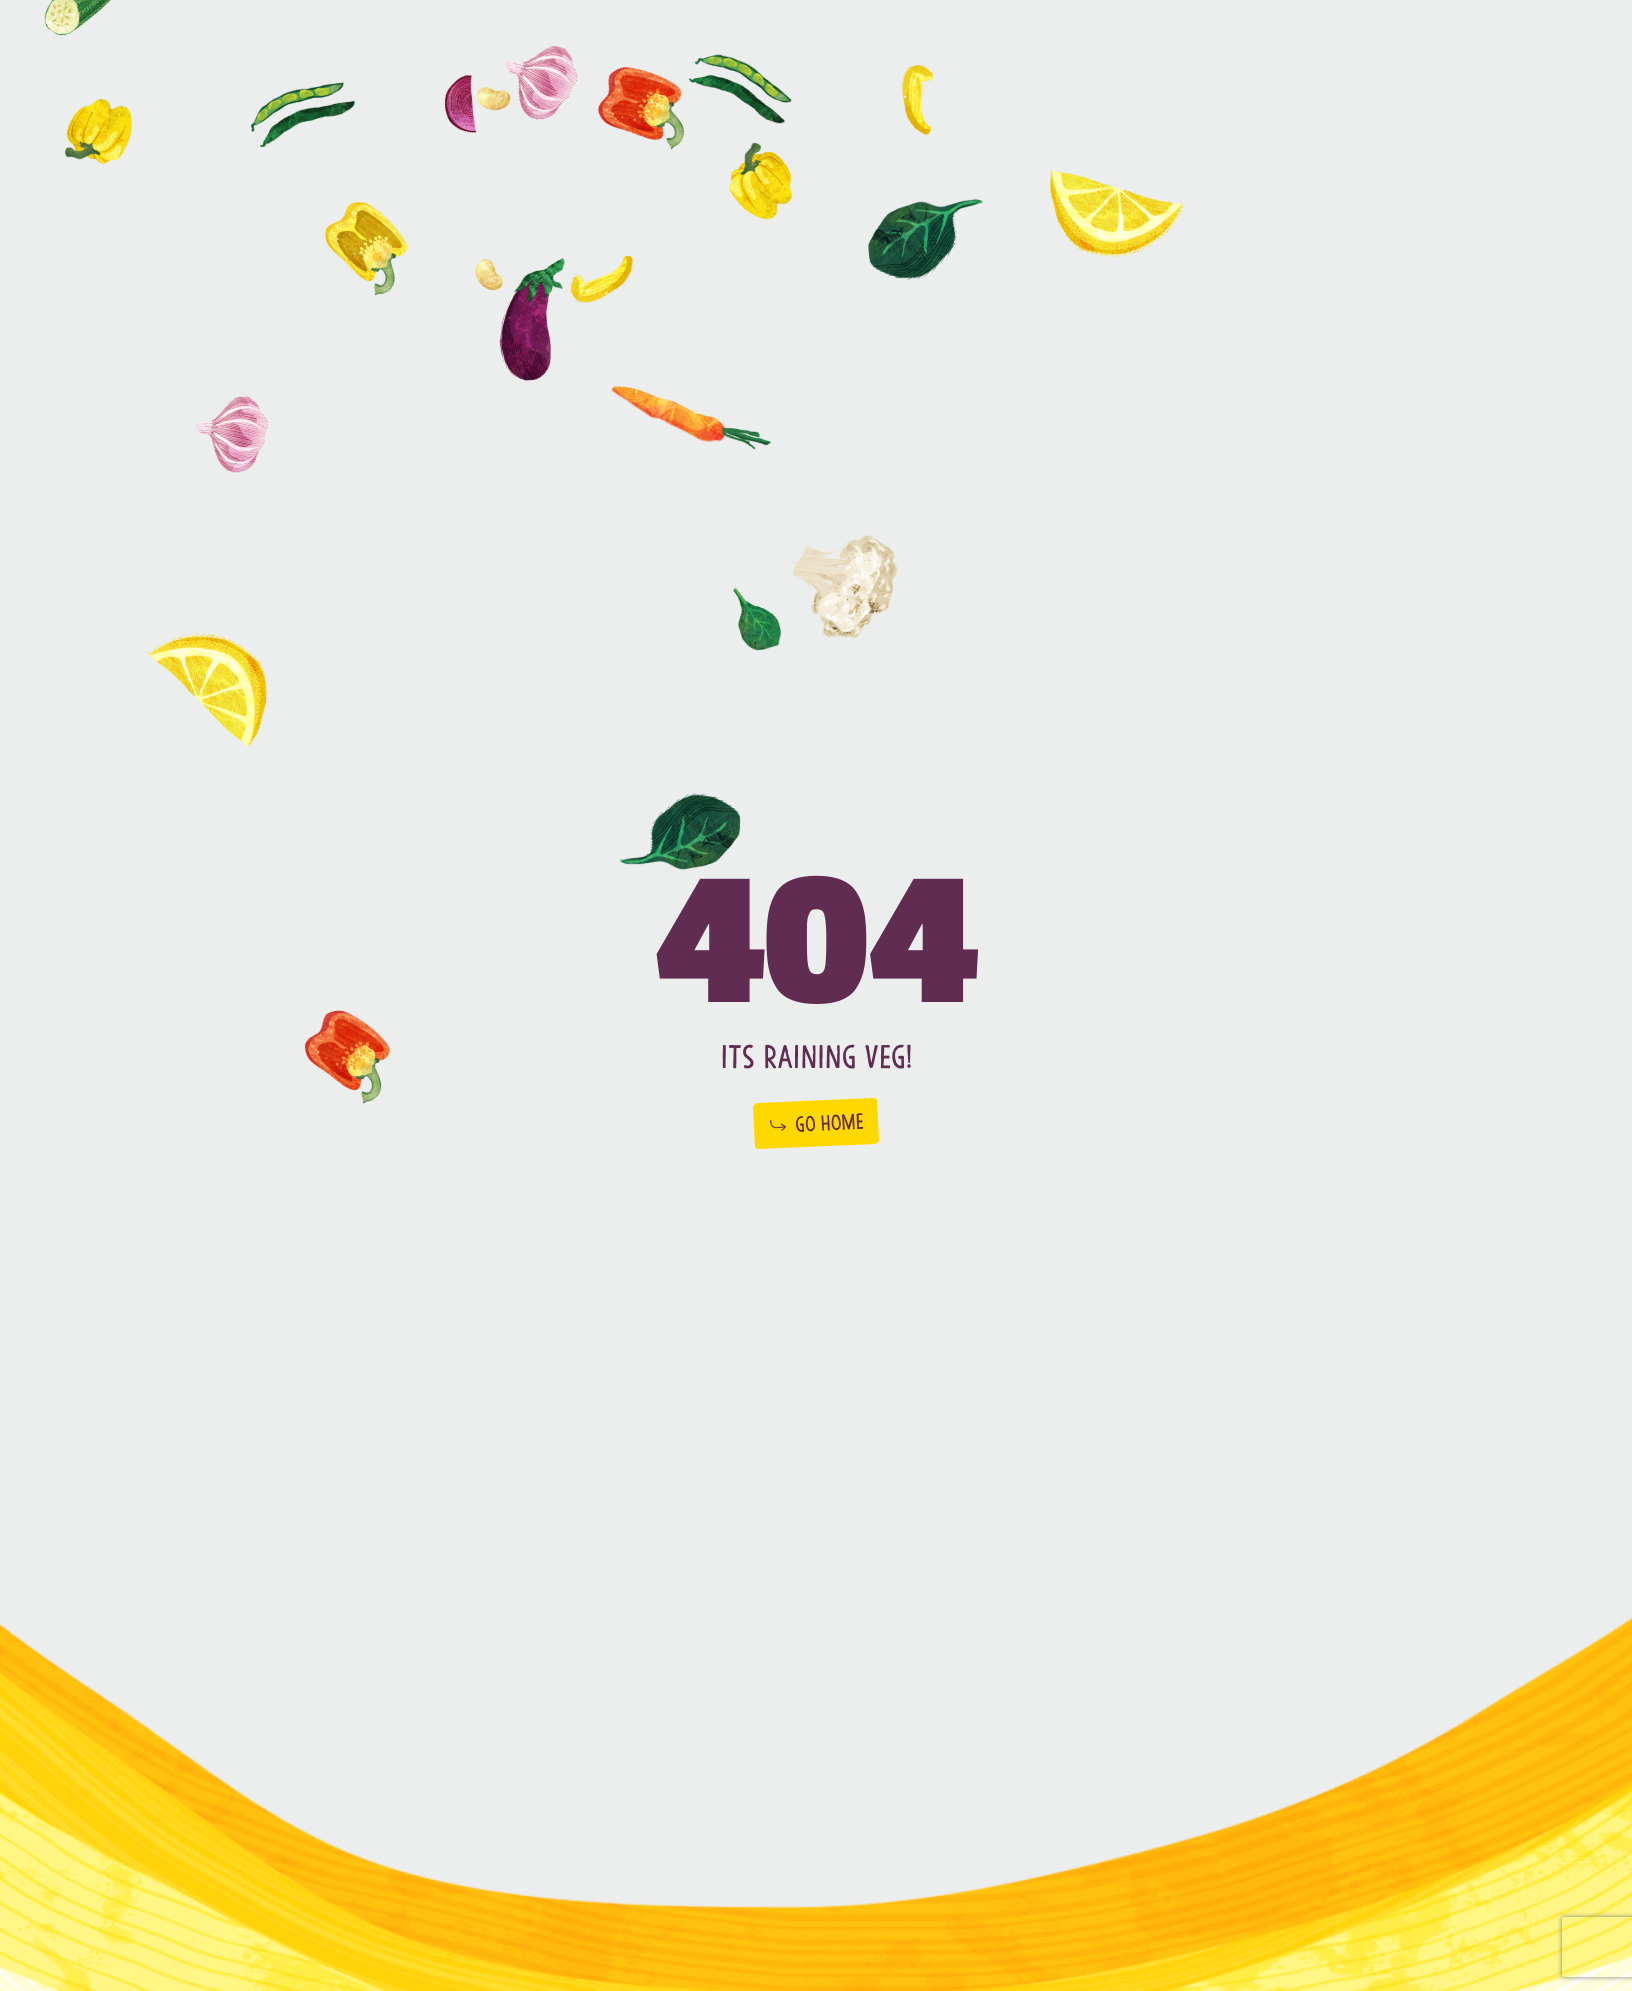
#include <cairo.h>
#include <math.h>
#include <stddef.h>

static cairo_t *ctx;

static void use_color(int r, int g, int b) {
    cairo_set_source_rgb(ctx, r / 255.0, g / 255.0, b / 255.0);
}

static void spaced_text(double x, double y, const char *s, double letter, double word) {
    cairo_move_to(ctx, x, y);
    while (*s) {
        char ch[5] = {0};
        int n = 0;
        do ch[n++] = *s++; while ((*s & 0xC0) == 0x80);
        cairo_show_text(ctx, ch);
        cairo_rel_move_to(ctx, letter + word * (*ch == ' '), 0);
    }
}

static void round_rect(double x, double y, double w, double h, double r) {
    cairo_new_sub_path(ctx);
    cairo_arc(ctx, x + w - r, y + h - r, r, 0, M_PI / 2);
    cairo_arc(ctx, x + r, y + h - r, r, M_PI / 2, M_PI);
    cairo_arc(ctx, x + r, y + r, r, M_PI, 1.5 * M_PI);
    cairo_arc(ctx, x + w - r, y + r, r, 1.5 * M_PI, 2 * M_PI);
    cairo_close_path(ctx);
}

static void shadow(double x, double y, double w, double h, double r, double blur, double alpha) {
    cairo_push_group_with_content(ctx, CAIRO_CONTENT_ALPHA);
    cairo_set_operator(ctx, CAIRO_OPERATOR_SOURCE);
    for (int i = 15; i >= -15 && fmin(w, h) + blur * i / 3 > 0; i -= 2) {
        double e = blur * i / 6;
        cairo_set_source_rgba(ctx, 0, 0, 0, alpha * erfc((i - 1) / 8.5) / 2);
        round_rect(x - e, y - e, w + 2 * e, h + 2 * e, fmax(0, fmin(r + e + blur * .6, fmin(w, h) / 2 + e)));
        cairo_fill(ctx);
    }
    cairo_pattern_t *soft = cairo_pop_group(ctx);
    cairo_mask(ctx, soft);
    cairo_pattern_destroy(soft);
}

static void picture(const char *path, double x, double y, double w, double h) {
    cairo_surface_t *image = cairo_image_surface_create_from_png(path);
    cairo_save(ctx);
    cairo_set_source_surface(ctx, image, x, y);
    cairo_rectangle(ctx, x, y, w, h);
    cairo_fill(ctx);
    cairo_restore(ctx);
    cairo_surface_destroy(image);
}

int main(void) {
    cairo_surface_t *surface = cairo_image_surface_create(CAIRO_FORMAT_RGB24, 1632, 1991);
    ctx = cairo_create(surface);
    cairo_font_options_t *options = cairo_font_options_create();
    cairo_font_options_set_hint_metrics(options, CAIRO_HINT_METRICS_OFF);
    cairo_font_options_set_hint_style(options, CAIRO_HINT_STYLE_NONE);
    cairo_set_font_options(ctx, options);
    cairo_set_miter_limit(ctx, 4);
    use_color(236, 237, 237);
    cairo_paint(ctx);
    picture("img1.png", 44, 0, 67, 36);
    use_color(231, 235, 228);
    cairo_rectangle(ctx, 783, 0, 1, 1);
    cairo_fill(ctx);
    picture("img2.png", 65, 98, 68, 66);
    picture("img3.png", 251, 82, 105, 66);
    picture("img4.png", 444, 74, 33, 60);
    picture("img6.png", 506, 45, 72, 75);
    picture("img5.png", 477, 87, 34, 24);
    picture("img7.png", 598, 67, 87, 83);
    picture("img8.png", 688, 54, 104, 70);
    picture("img9.png", 902, 65, 32, 71);
    picture("img10.png", 324, 201, 84, 95);
    picture("img11.png", 475, 259, 28, 32);
    picture("img12.png", 499, 258, 66, 123);
    picture("img13.png", 570, 255, 63, 49);
    picture("img14.png", 729, 142, 63, 78);
    picture("img15.png", 868, 199, 115, 81);
    picture("img16.png", 1049, 170, 136, 88);
    picture("img17.png", 195, 396, 73, 77);
    picture("img18.png", 611, 386, 160, 64);
    picture("img19.png", 733, 587, 49, 64);
    picture("img20.png", 792, 534, 106, 105);
    picture("img21.png", 147, 633, 121, 114);
    picture("img22.png", 619, 793, 122, 77);
    picture("img23.png", 304, 1010, 87, 94);
    picture("img24.png", 0, 1617, 1632, 374);
    cairo_select_font_face(ctx, "Passion One", CAIRO_FONT_SLANT_NORMAL, CAIRO_FONT_WEIGHT_BOLD);
    cairo_set_font_size(ctx, 200);
    use_color(97, 44, 81);
    spaced_text(655, 1002, "404", -2, 0);
    cairo_select_font_face(ctx, "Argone", CAIRO_FONT_SLANT_NORMAL, CAIRO_FONT_WEIGHT_BOLD);
    cairo_set_font_size(ctx, 30);
    cairo_move_to(ctx, 720, 1068);
    cairo_show_text(ctx, "ITS RAINING VEG!");
    use_color(255, 216, 0);
    cairo_new_path(ctx);
    cairo_move_to(ctx, 757, 1103);
    cairo_line_to(ctx, 873, 1098);
    cairo_curve_to(ctx, 875, 1098, 877, 1099, 877, 1101);
    cairo_line_to(ctx, 879, 1139);
    cairo_curve_to(ctx, 879, 1142, 877, 1143, 875, 1144);
    cairo_line_to(ctx, 759, 1149);
    cairo_curve_to(ctx, 757, 1149, 755, 1148, 755, 1146);
    cairo_line_to(ctx, 753, 1108);
    cairo_curve_to(ctx, 753, 1105, 755, 1104, 757, 1103);
    cairo_close_path(ctx);
    cairo_fill(ctx);
    picture("img25.png", 770, 1120, 16, 11);
    cairo_set_font_size(ctx, 20);
    use_color(97, 44, 81);
    cairo_save(ctx);
    cairo_translate(ctx, 795, 1132);
    cairo_rotate(ctx, -2.9 * M_PI / 180);
    cairo_move_to(ctx, 0, 0);
    cairo_show_text(ctx, "GO HOME");
    cairo_restore(ctx);
    cairo_save(ctx);
    cairo_set_fill_rule(ctx, CAIRO_FILL_RULE_EVEN_ODD);
    cairo_new_path(ctx);
    cairo_move_to(ctx, 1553, 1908);
    cairo_line_to(ctx, 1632, 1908);
    cairo_line_to(ctx, 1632, 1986);
    cairo_line_to(ctx, 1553, 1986);
    cairo_close_path(ctx);
    cairo_move_to(ctx, 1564, 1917);
    cairo_line_to(ctx, 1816, 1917);
    cairo_curve_to(ctx, 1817, 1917, 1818, 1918, 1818, 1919);
    cairo_line_to(ctx, 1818, 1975);
    cairo_curve_to(ctx, 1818, 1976, 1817, 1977, 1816, 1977);
    cairo_line_to(ctx, 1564, 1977);
    cairo_curve_to(ctx, 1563, 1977, 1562, 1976, 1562, 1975);
    cairo_line_to(ctx, 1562, 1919);
    cairo_curve_to(ctx, 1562, 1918, 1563, 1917, 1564, 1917);
    cairo_close_path(ctx);
    cairo_clip(ctx);
    use_color(128, 128, 128);
    shadow(1562, 1917, 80, 60, 2, 2.5, 1);
    cairo_restore(ctx);
    cairo_surface_write_to_png(surface, "result.png");
    cairo_font_options_destroy(options);
    cairo_destroy(ctx);
    cairo_surface_destroy(surface);
    return 0;
}
